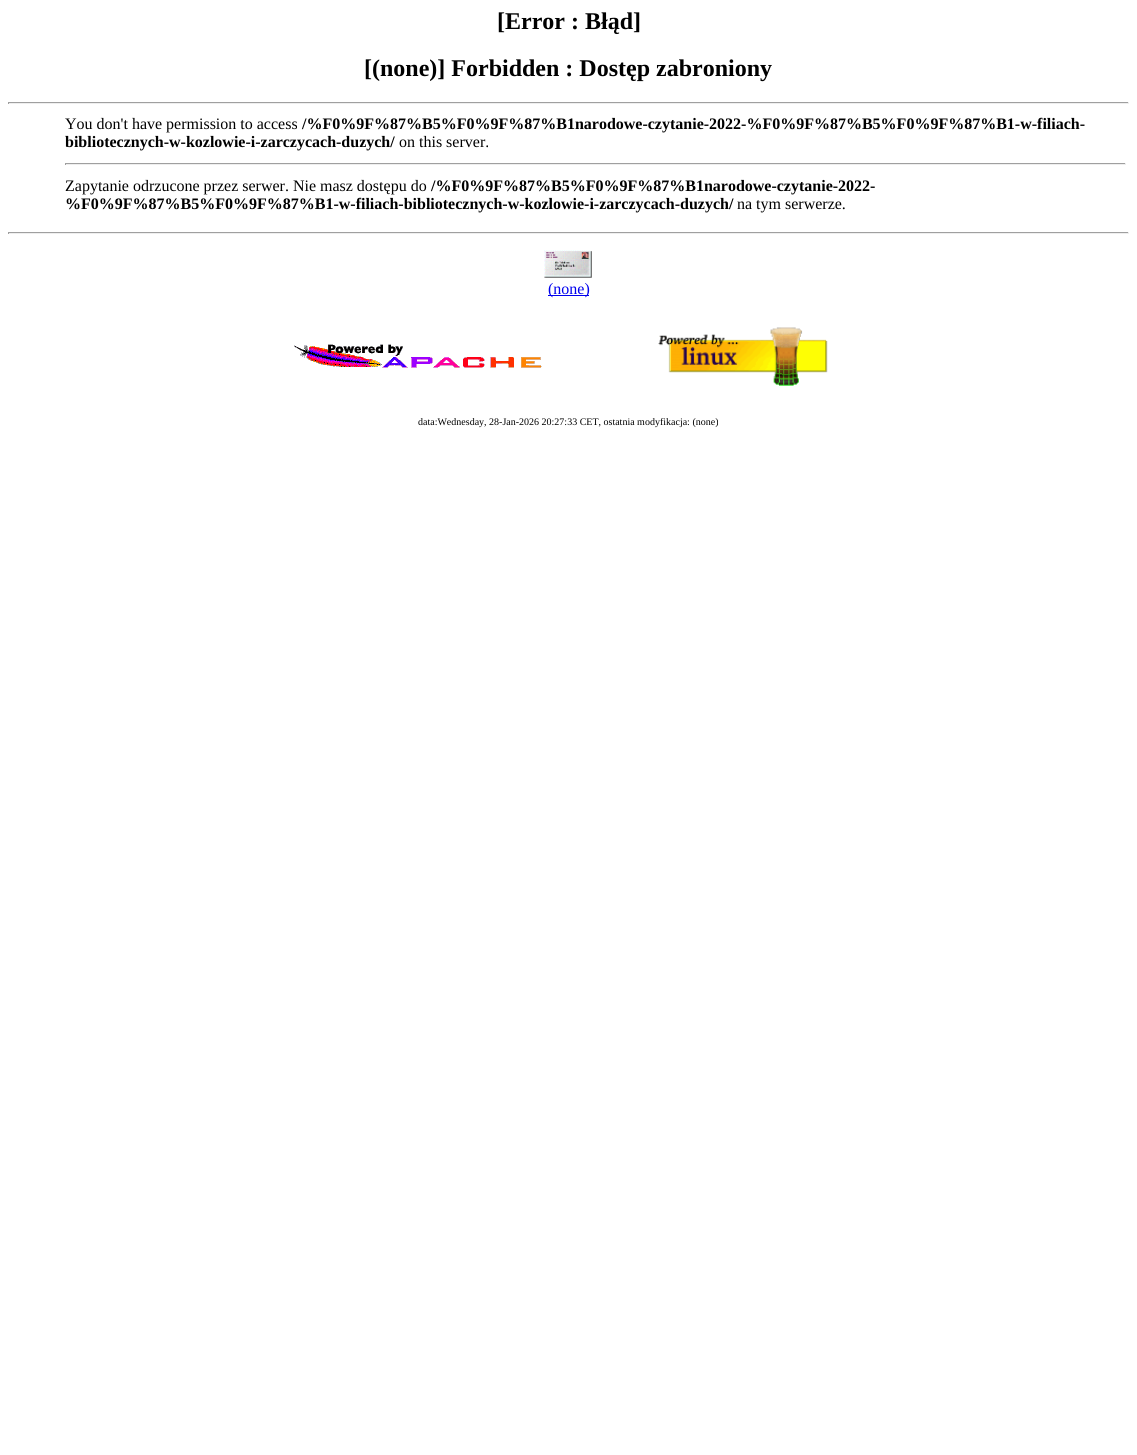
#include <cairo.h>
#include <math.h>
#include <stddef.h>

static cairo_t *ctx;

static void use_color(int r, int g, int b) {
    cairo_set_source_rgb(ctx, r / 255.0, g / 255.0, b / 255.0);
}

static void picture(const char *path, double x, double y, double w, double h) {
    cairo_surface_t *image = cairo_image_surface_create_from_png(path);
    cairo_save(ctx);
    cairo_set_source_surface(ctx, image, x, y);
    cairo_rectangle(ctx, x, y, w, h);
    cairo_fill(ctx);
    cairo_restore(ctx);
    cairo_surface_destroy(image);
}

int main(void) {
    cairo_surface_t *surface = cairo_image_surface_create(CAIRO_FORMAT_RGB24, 1137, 1455);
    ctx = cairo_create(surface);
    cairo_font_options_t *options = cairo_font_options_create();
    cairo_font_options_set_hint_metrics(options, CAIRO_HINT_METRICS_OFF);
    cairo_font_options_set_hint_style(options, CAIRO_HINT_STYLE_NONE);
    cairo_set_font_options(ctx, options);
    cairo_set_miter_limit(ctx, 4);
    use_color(255, 255, 255);
    cairo_paint(ctx);
    cairo_select_font_face(ctx, "Liberation Serif", CAIRO_FONT_SLANT_NORMAL, CAIRO_FONT_WEIGHT_BOLD);
    cairo_set_font_size(ctx, 24);
    use_color(0, 0, 0);
    cairo_move_to(ctx, 497, 29);
    cairo_show_text(ctx, "[Error : Błąd]");
    cairo_move_to(ctx, 364, 76);
    cairo_show_text(ctx, "[(none)] Forbidden : Dostęp zabroniony");
    use_color(159, 159, 159);
    cairo_rectangle(ctx, 8, 102, 1121, 1);
    cairo_fill(ctx);
    use_color(238, 238, 238);
    cairo_rectangle(ctx, 1128, 102, 1, 2);
    cairo_fill(ctx);
    cairo_rectangle(ctx, 8, 103, 1121, 1);
    cairo_fill(ctx);
    use_color(159, 159, 159);
    cairo_rectangle(ctx, 8, 102, 1, 2);
    cairo_fill(ctx);
    cairo_select_font_face(ctx, "Liberation Serif", CAIRO_FONT_SLANT_NORMAL, CAIRO_FONT_WEIGHT_NORMAL);
    cairo_set_font_size(ctx, 16);
    use_color(0, 0, 0);
    cairo_move_to(ctx, 65, 129);
    cairo_show_text(ctx, "You don't have permission to access");
    cairo_select_font_face(ctx, "Liberation Serif", CAIRO_FONT_SLANT_NORMAL, CAIRO_FONT_WEIGHT_BOLD);
    cairo_move_to(ctx, 302, 129);
    cairo_show_text(ctx, "/%F0%9F%87%B5%F0%9F%87%B1narodowe-czytanie-2022-%F0%9F%87%B5%F0%9F%87%B1-w-filiach-");
    cairo_move_to(ctx, 65, 147);
    cairo_show_text(ctx, "bibliotecznych-w-kozlowie-i-zarczycach-duzych/");
    cairo_select_font_face(ctx, "Liberation Serif", CAIRO_FONT_SLANT_NORMAL, CAIRO_FONT_WEIGHT_NORMAL);
    cairo_move_to(ctx, 399, 147);
    cairo_show_text(ctx, "on this server.");
    use_color(159, 159, 159);
    cairo_rectangle(ctx, 65, 163, 1061, 1);
    cairo_fill(ctx);
    use_color(238, 238, 238);
    cairo_rectangle(ctx, 1125, 163, 1, 2);
    cairo_fill(ctx);
    cairo_rectangle(ctx, 65, 164, 1061, 1);
    cairo_fill(ctx);
    use_color(159, 159, 159);
    cairo_rectangle(ctx, 65, 163, 1, 2);
    cairo_fill(ctx);
    use_color(0, 0, 0);
    cairo_move_to(ctx, 65, 191);
    cairo_show_text(ctx, "Zapytanie odrzucone przez serwer. Nie masz dostępu do");
    cairo_select_font_face(ctx, "Liberation Serif", CAIRO_FONT_SLANT_NORMAL, CAIRO_FONT_WEIGHT_BOLD);
    cairo_move_to(ctx, 431, 191);
    cairo_show_text(ctx, "/%F0%9F%87%B5%F0%9F%87%B1narodowe-czytanie-2022-");
    cairo_move_to(ctx, 65, 209);
    cairo_show_text(ctx, "%F0%9F%87%B5%F0%9F%87%B1-w-filiach-bibliotecznych-w-kozlowie-i-zarczycach-duzych/");
    cairo_select_font_face(ctx, "Liberation Serif", CAIRO_FONT_SLANT_NORMAL, CAIRO_FONT_WEIGHT_NORMAL);
    cairo_move_to(ctx, 737, 209);
    cairo_show_text(ctx, "na tym serwerze.");
    use_color(159, 159, 159);
    cairo_rectangle(ctx, 8, 232, 1121, 1);
    cairo_fill(ctx);
    use_color(238, 238, 238);
    cairo_rectangle(ctx, 1128, 232, 1, 2);
    cairo_fill(ctx);
    cairo_rectangle(ctx, 8, 233, 1121, 1);
    cairo_fill(ctx);
    use_color(159, 159, 159);
    cairo_rectangle(ctx, 8, 232, 1, 2);
    cairo_fill(ctx);
    picture("img1.png", 544, 250, 48, 28);
    use_color(0, 0, 238);
    cairo_rectangle(ctx, 548, 295, 41, 1);
    cairo_fill(ctx);
    cairo_move_to(ctx, 548, 294);
    cairo_show_text(ctx, "(none)");
    picture("img2.png", 294, 344, 248, 24);
    picture("img3.png", 658, 327, 170, 59);
    cairo_set_font_size(ctx, 10);
    use_color(0, 0, 0);
    cairo_move_to(ctx, 418, 425);
    cairo_show_text(ctx, "data:Wednesday, 28-Jan-2026 20:27:33 CET, ostatnia modyfikacja: (none)");
    cairo_surface_write_to_png(surface, "result.png");
    cairo_font_options_destroy(options);
    cairo_destroy(ctx);
    cairo_surface_destroy(surface);
    return 0;
}
